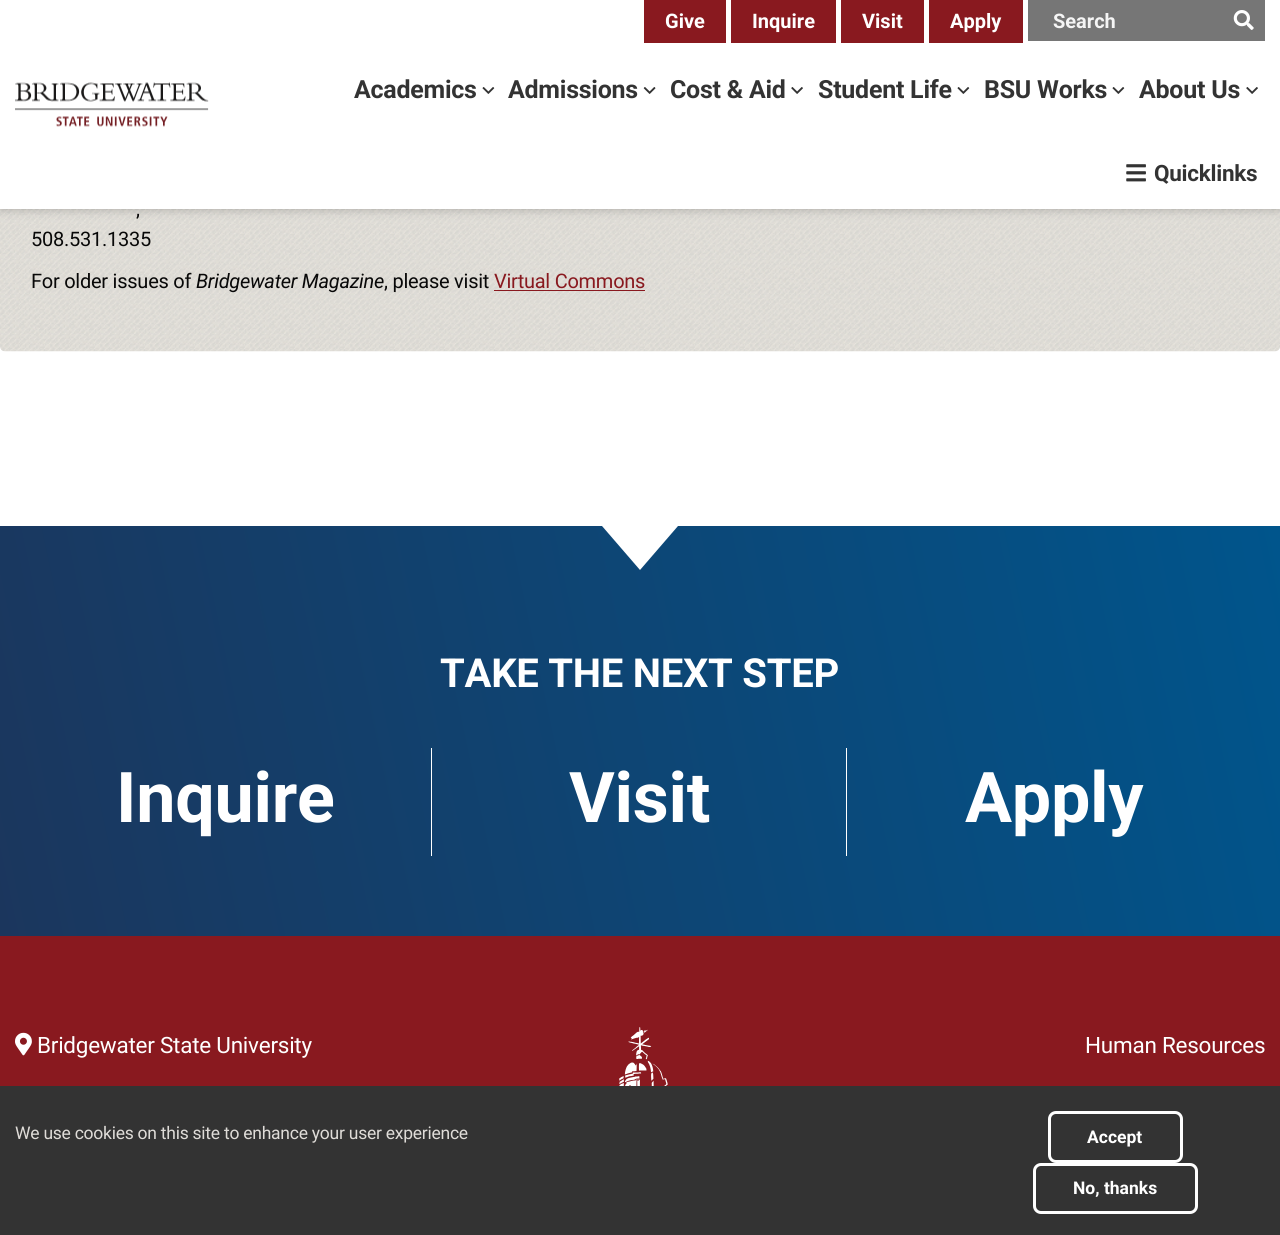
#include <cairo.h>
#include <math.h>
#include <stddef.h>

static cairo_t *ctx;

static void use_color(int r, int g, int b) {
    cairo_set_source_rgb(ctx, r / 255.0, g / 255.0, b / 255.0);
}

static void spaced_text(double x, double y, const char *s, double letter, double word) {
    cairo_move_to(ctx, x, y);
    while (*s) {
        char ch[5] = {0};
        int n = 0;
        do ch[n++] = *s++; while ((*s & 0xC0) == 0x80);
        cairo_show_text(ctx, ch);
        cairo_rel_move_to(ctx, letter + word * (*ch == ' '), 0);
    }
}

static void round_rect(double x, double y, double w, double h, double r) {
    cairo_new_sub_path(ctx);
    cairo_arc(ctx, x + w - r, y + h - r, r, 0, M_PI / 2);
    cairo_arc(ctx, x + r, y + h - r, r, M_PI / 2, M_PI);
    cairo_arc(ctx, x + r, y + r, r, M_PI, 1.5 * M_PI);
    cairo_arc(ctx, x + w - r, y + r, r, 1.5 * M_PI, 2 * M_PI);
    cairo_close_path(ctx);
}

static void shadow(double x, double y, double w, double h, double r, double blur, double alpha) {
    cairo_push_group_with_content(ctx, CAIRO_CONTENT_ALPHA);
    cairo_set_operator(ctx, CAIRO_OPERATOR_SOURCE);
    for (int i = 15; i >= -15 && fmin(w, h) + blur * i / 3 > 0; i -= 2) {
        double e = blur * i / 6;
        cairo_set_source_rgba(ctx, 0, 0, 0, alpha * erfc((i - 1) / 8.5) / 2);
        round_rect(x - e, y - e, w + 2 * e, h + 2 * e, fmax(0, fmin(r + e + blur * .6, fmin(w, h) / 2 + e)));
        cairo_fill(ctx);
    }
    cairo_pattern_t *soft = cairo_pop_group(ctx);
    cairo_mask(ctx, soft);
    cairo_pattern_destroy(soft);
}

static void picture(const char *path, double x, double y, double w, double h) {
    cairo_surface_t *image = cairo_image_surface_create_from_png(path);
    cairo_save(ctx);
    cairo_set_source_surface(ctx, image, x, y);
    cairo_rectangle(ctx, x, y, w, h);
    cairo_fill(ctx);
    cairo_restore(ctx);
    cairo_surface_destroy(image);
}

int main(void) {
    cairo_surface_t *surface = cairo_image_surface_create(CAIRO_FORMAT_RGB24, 1280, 1235);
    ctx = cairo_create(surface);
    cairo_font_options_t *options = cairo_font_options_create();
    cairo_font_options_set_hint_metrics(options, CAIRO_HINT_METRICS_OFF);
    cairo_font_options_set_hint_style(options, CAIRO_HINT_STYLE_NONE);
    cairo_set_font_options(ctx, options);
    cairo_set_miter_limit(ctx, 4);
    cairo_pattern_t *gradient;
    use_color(255, 255, 255);
    cairo_paint(ctx);
    picture("img7.png", 0, 209, 1280, 143);
    use_color(0, 0, 0);
    shadow(0, 0, 1280, 209, 0, 5, 0.25);
    use_color(255, 255, 255);
    cairo_rectangle(ctx, 0, 0, 1280, 209);
    cairo_fill(ctx);
    picture("img1.png", 15, 82, 194, 45);
    use_color(137, 25, 31);
    cairo_rectangle(ctx, 644, 0, 82, 43);
    cairo_fill(ctx);
    cairo_select_font_face(ctx, "Roboto", CAIRO_FONT_SLANT_NORMAL, CAIRO_FONT_WEIGHT_BOLD);
    cairo_set_font_size(ctx, 20);
    use_color(255, 255, 255);
    cairo_move_to(ctx, 665, 28);
    cairo_show_text(ctx, "Give");
    use_color(137, 25, 31);
    cairo_rectangle(ctx, 731, 0, 105, 43);
    cairo_fill(ctx);
    use_color(255, 255, 255);
    cairo_move_to(ctx, 752, 28);
    cairo_show_text(ctx, "Inquire");
    use_color(137, 25, 31);
    cairo_rectangle(ctx, 841, 0, 83, 43);
    cairo_fill(ctx);
    use_color(255, 255, 255);
    cairo_move_to(ctx, 862, 28);
    cairo_show_text(ctx, "Visit");
    use_color(137, 25, 31);
    cairo_rectangle(ctx, 929, 0, 94, 43);
    cairo_fill(ctx);
    use_color(255, 255, 255);
    cairo_move_to(ctx, 950, 28);
    cairo_show_text(ctx, "Apply");
    use_color(118, 118, 118);
    cairo_rectangle(ctx, 1028, 0, 237, 41);
    cairo_fill(ctx);
    use_color(245, 245, 245);
    cairo_move_to(ctx, 1053, 28);
    cairo_show_text(ctx, "Search");
    picture("img2.png", 1233, 10, 21, 20);
    cairo_set_font_size(ctx, 25);
    use_color(51, 51, 51);
    spaced_text(354, 98, "Academics", -0.25, 0);
    picture("img3.png", 482, 87, 13, 7);
    spaced_text(508, 98, "Admissions", -0.25, 0);
    picture("img4.png", 643, 87, 13, 7);
    spaced_text(670, 98, "Cost & Aid", -0.25, 0);
    picture("img5.png", 791, 87, 12, 7);
    spaced_text(818, 98, "Student Life", -0.25, 0);
    picture("img3.png", 957, 87, 13, 7);
    spaced_text(984, 98, "BSU Works", -0.25, 0);
    picture("img3.png", 1112, 87, 13, 7);
    spaced_text(1139, 98, "About Us", -0.25, 0);
    picture("img5.png", 1246, 87, 12, 7);
    picture("img6.png", 1126, 164, 20, 18);
    cairo_set_font_size(ctx, 22.5);
    spaced_text(1154, 181, "Quicklinks", -0.25, 0);
    cairo_select_font_face(ctx, "Roboto", CAIRO_FONT_SLANT_NORMAL, CAIRO_FONT_WEIGHT_NORMAL);
    cairo_set_font_size(ctx, 20);
    use_color(8, 8, 8);
    spaced_text(136, 216, ",", -0.25, 0);
    spaced_text(31, 246, "508.531.1335", -0.25, 0);
    spaced_text(31, 288, "For older issues of", -0.25, 0);
    cairo_select_font_face(ctx, "Roboto", CAIRO_FONT_SLANT_ITALIC, CAIRO_FONT_WEIGHT_NORMAL);
    spaced_text(196, 288, "Bridgewater Magazine", -0.25, 0);
    cairo_select_font_face(ctx, "Roboto", CAIRO_FONT_SLANT_NORMAL, CAIRO_FONT_WEIGHT_NORMAL);
    spaced_text(384, 288, ", please visit", -0.25, 0);
    use_color(137, 25, 31);
    spaced_text(494, 288, "Virtual Commons", -0.25, 0);
    cairo_rectangle(ctx, 494, 290, 151, 1);
    cairo_fill(ctx);
    gradient = cairo_pattern_create_linear(-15, 867, 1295, 589);
    cairo_pattern_add_color_stop_rgba(gradient, 0, 0.106, 0.212, 0.365, 1);
    cairo_pattern_add_color_stop_rgba(gradient, 1, 0, 0.333, 0.549, 1);
    cairo_set_source(ctx, gradient);
    cairo_pattern_destroy(gradient);
    cairo_rectangle(ctx, 0, 526, 1280, 410);
    cairo_fill(ctx);
    use_color(255, 255, 255);
    cairo_new_path(ctx);
    cairo_move_to(ctx, 0, 445);
    cairo_line_to(ctx, 0, 526);
    cairo_line_to(ctx, 602, 526);
    cairo_line_to(ctx, 640, 570);
    cairo_line_to(ctx, 678, 526);
    cairo_line_to(ctx, 1280, 526);
    cairo_line_to(ctx, 1280, 445);
    cairo_close_path(ctx);
    cairo_fill(ctx);
    cairo_select_font_face(ctx, "Roboto", CAIRO_FONT_SLANT_NORMAL, CAIRO_FONT_WEIGHT_BOLD);
    cairo_set_font_size(ctx, 40);
    spaced_text(440, 687, "TAKE THE NEXT STEP", -0.25, 0);
    cairo_rectangle(ctx, 431, 748, 1, 108);
    cairo_fill(ctx);
    cairo_set_font_size(ctx, 70);
    spaced_text(116, 822, "Inquire", -0.25, 0);
    cairo_rectangle(ctx, 846, 748, 1, 108);
    cairo_fill(ctx);
    spaced_text(569, 822, "Visit", -0.25, 0);
    spaced_text(965, 822, "Apply", -0.25, 0);
    use_color(137, 25, 31);
    cairo_rectangle(ctx, 0, 936, 1280, 150);
    cairo_fill(ctx);
    picture("img8.png", 15, 1032, 17, 24);
    cairo_select_font_face(ctx, "Roboto", CAIRO_FONT_SLANT_NORMAL, CAIRO_FONT_WEIGHT_NORMAL);
    cairo_set_font_size(ctx, 22.5);
    use_color(255, 255, 255);
    spaced_text(37, 1053, "Bridgewater State University", -0.25, 0);
    picture("img9.png", 619, 1027, 49, 59);
    spaced_text(1085, 1053, "Human Resources", -0.25, 0);
    use_color(51, 51, 51);
    cairo_rectangle(ctx, 0, 1086, 1280, 149);
    cairo_fill(ctx);
    cairo_set_font_size(ctx, 17.5);
    use_color(223, 220, 216);
    spaced_text(15, 1139, "We use cookies on this site to enhance your user experience", -0.25, 0);
    round_rect(1049.5, 1112.5, 132, 49, 6.5);
    use_color(255, 255, 255);
    cairo_set_line_width(ctx, 3);
    cairo_stroke(ctx);
    cairo_select_font_face(ctx, "Roboto", CAIRO_FONT_SLANT_NORMAL, CAIRO_FONT_WEIGHT_BOLD);
    cairo_move_to(ctx, 1087, 1143);
    cairo_show_text(ctx, "Accept");
    round_rect(1034.5, 1164.5, 162, 48, 6.5);
    cairo_stroke(ctx);
    cairo_move_to(ctx, 1073, 1194);
    cairo_show_text(ctx, "No, thanks");
    cairo_surface_write_to_png(surface, "result.png");
    cairo_font_options_destroy(options);
    cairo_destroy(ctx);
    cairo_surface_destroy(surface);
    return 0;
}
